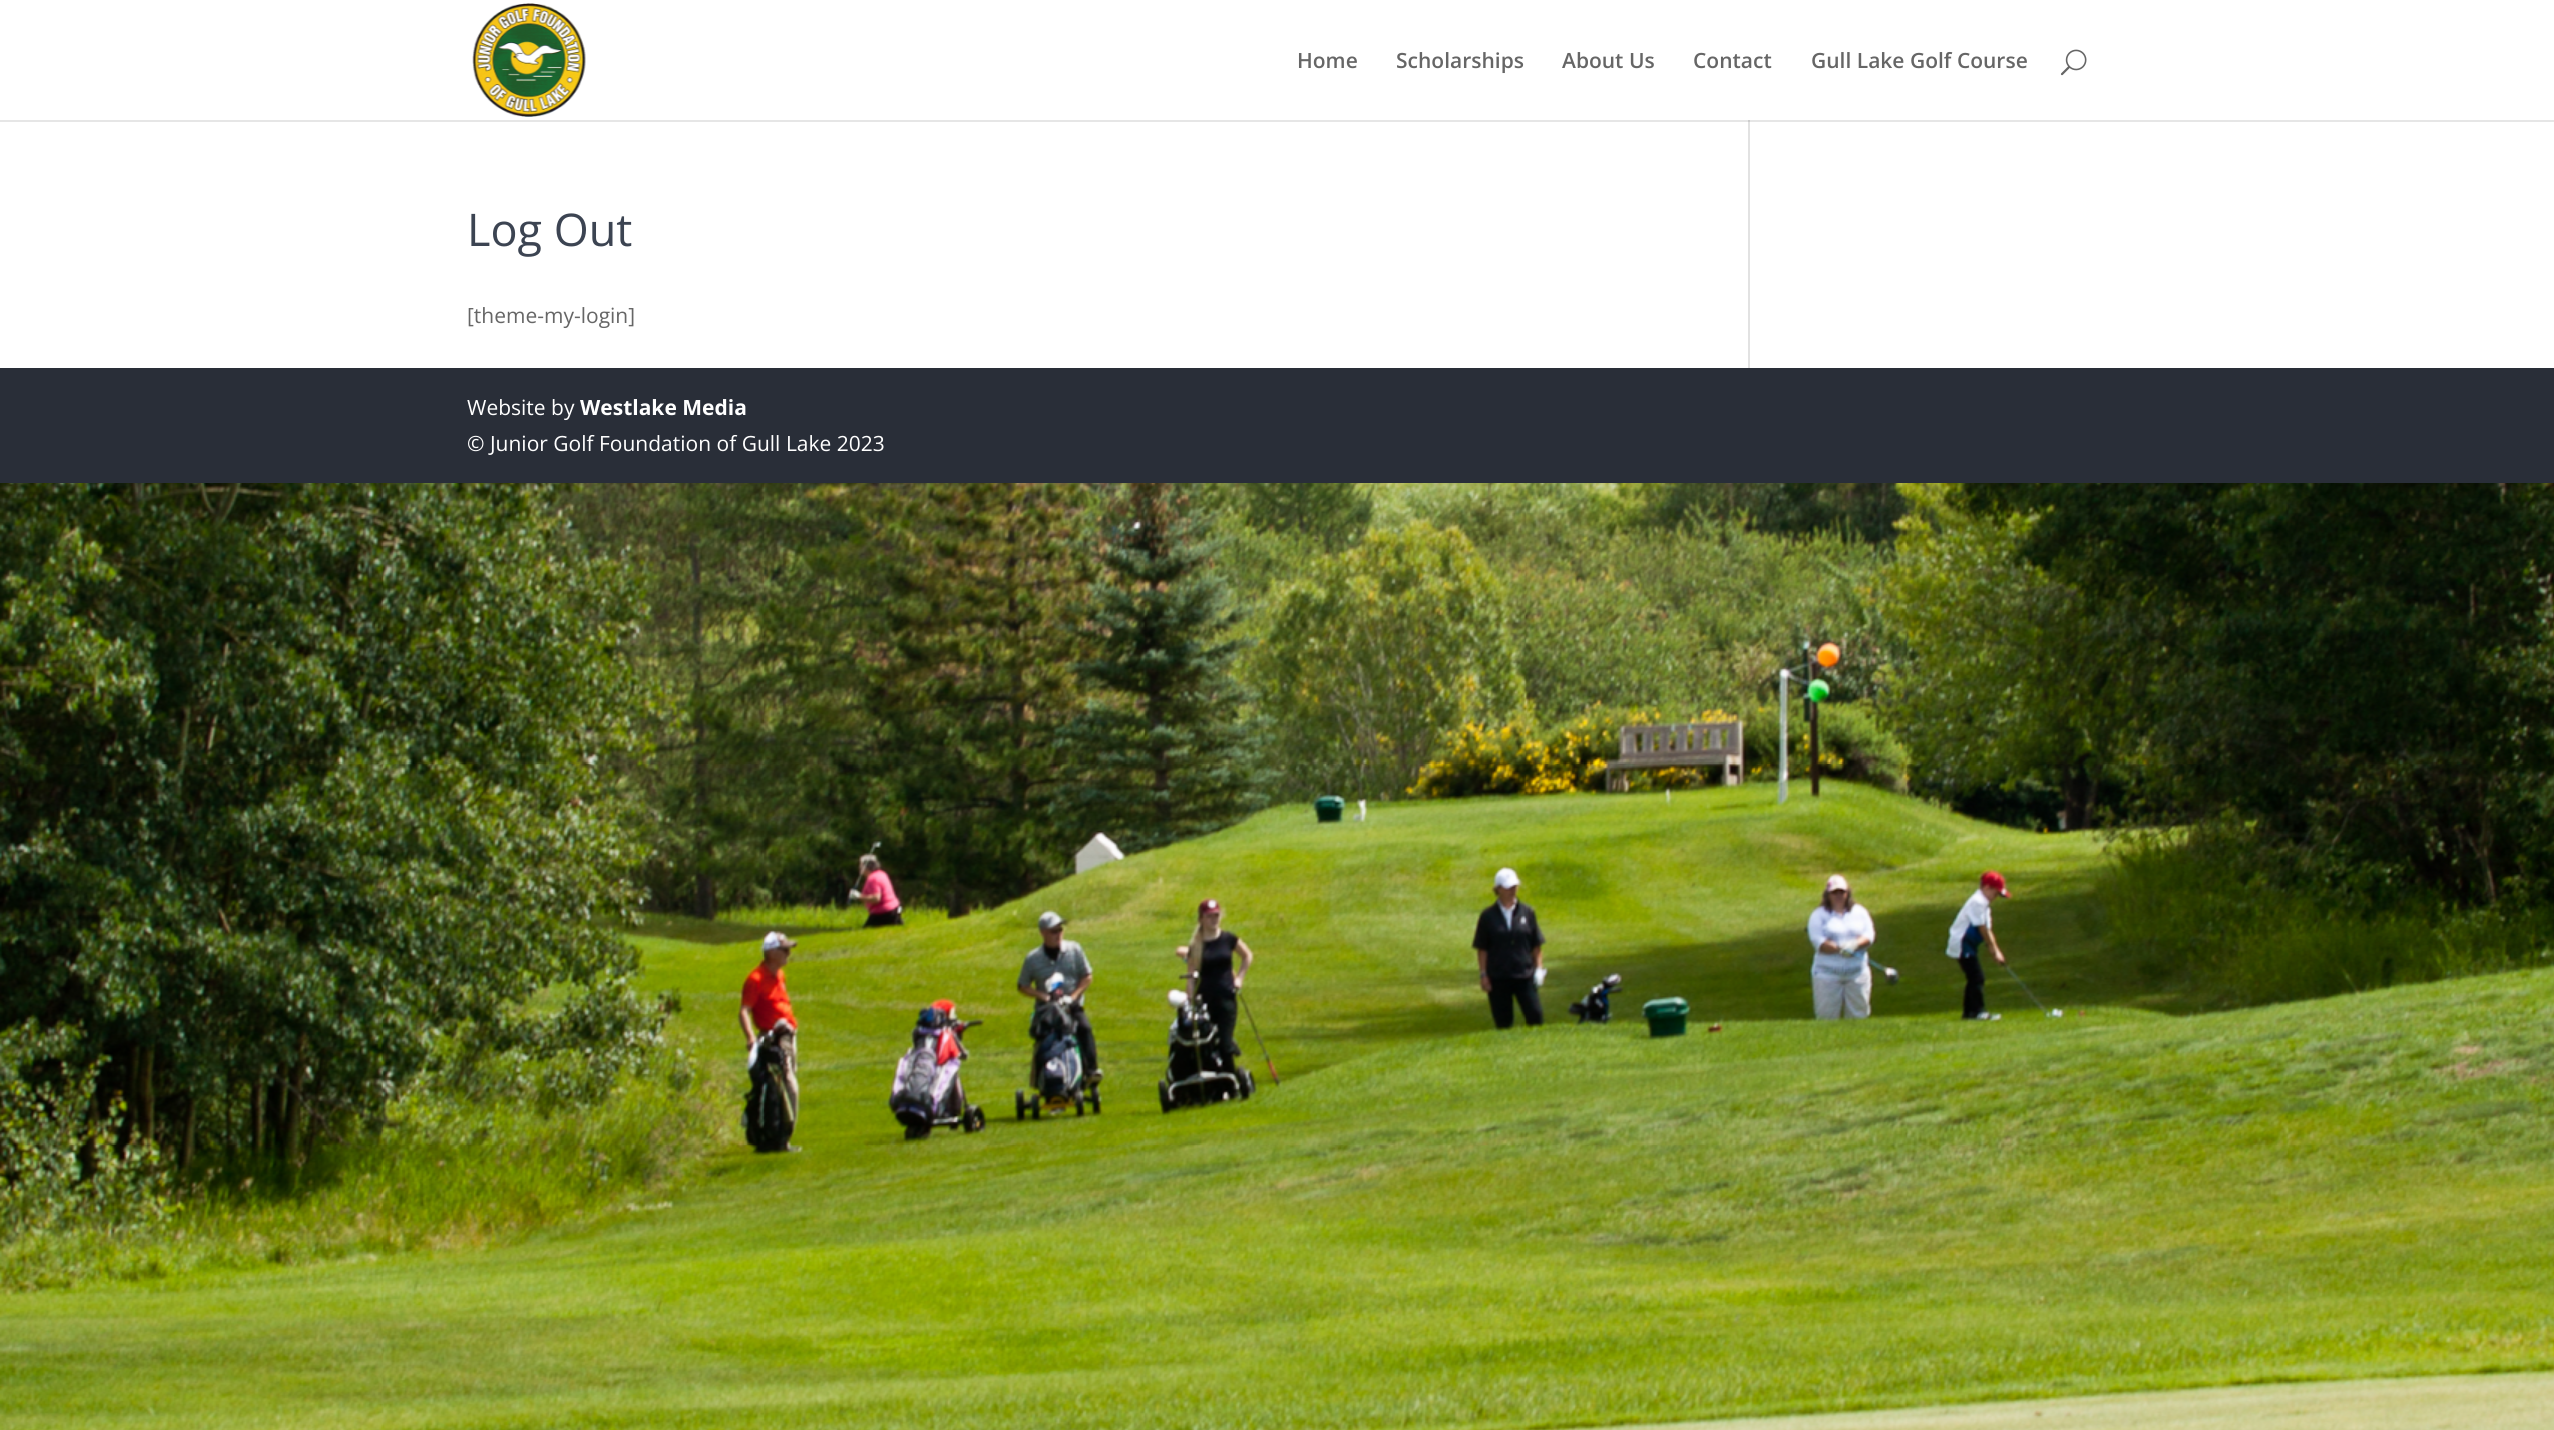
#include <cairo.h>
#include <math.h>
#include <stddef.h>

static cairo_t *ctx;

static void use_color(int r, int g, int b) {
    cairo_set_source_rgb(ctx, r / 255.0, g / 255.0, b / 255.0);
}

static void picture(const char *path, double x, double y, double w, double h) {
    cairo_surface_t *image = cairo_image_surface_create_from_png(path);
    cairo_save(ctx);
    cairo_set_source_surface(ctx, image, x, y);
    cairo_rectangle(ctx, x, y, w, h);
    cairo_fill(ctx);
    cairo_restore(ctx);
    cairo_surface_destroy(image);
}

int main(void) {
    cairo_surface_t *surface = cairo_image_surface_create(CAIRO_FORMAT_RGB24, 2554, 1430);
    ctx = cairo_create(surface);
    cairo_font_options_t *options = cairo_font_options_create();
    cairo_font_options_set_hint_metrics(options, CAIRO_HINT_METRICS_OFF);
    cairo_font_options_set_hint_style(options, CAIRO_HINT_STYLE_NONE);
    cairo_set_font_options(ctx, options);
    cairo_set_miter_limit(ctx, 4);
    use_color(255, 255, 255);
    cairo_paint(ctx);
    picture("img1.png", 0, 483, 2554, 947);
    use_color(226, 226, 226);
    cairo_rectangle(ctx, 1748, 120, 2, 248);
    cairo_fill(ctx);
    cairo_set_source_rgba(ctx, 0, 0, 0, 0.1);
    cairo_new_path(ctx);
    cairo_move_to(ctx, 0, 120);
    cairo_line_to(ctx, 0, 122);
    cairo_line_to(ctx, 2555, 122);
    cairo_line_to(ctx, 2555, 2);
    cairo_line_to(ctx, 2554, 2);
    cairo_line_to(ctx, 2554, 120);
    cairo_close_path(ctx);
    cairo_fill(ctx);
    picture("img2.png", 472, 3, 114, 114);
    cairo_select_font_face(ctx, "Open Sans SemiBold", CAIRO_FONT_SLANT_NORMAL, CAIRO_FONT_WEIGHT_NORMAL);
    cairo_set_font_size(ctx, 21);
    use_color(102, 102, 102);
    cairo_move_to(ctx, 1297, 68);
    cairo_show_text(ctx, "Home");
    cairo_move_to(ctx, 1396, 68);
    cairo_show_text(ctx, "Scholarships");
    cairo_move_to(ctx, 1562, 68);
    cairo_show_text(ctx, "About Us");
    cairo_move_to(ctx, 1693, 68);
    cairo_show_text(ctx, "Contact");
    cairo_move_to(ctx, 1811, 68);
    cairo_show_text(ctx, "Gull Lake Golf Course");
    picture("img3.png", 2060, 49, 27, 27);
    cairo_select_font_face(ctx, "Open Sans", CAIRO_FONT_SLANT_NORMAL, CAIRO_FONT_WEIGHT_NORMAL);
    cairo_set_font_size(ctx, 45);
    use_color(60, 68, 82);
    cairo_move_to(ctx, 467, 246);
    cairo_show_text(ctx, "Log Out");
    cairo_set_font_size(ctx, 21);
    use_color(102, 102, 102);
    cairo_move_to(ctx, 467, 323);
    cairo_show_text(ctx, "[theme-my-login]");
    use_color(41, 46, 56);
    cairo_rectangle(ctx, 0, 368, 2554, 115);
    cairo_fill(ctx);
    use_color(255, 255, 255);
    cairo_move_to(ctx, 467, 415);
    cairo_show_text(ctx, "Website by");
    cairo_select_font_face(ctx, "Open Sans", CAIRO_FONT_SLANT_NORMAL, CAIRO_FONT_WEIGHT_BOLD);
    cairo_move_to(ctx, 580, 415);
    cairo_show_text(ctx, "Westlake Media");
    cairo_select_font_face(ctx, "Open Sans", CAIRO_FONT_SLANT_NORMAL, CAIRO_FONT_WEIGHT_NORMAL);
    cairo_move_to(ctx, 467, 451);
    cairo_show_text(ctx, "© Junior Golf Foundation of Gull Lake 2023");
    cairo_surface_write_to_png(surface, "result.png");
    cairo_font_options_destroy(options);
    cairo_destroy(ctx);
    cairo_surface_destroy(surface);
    return 0;
}
